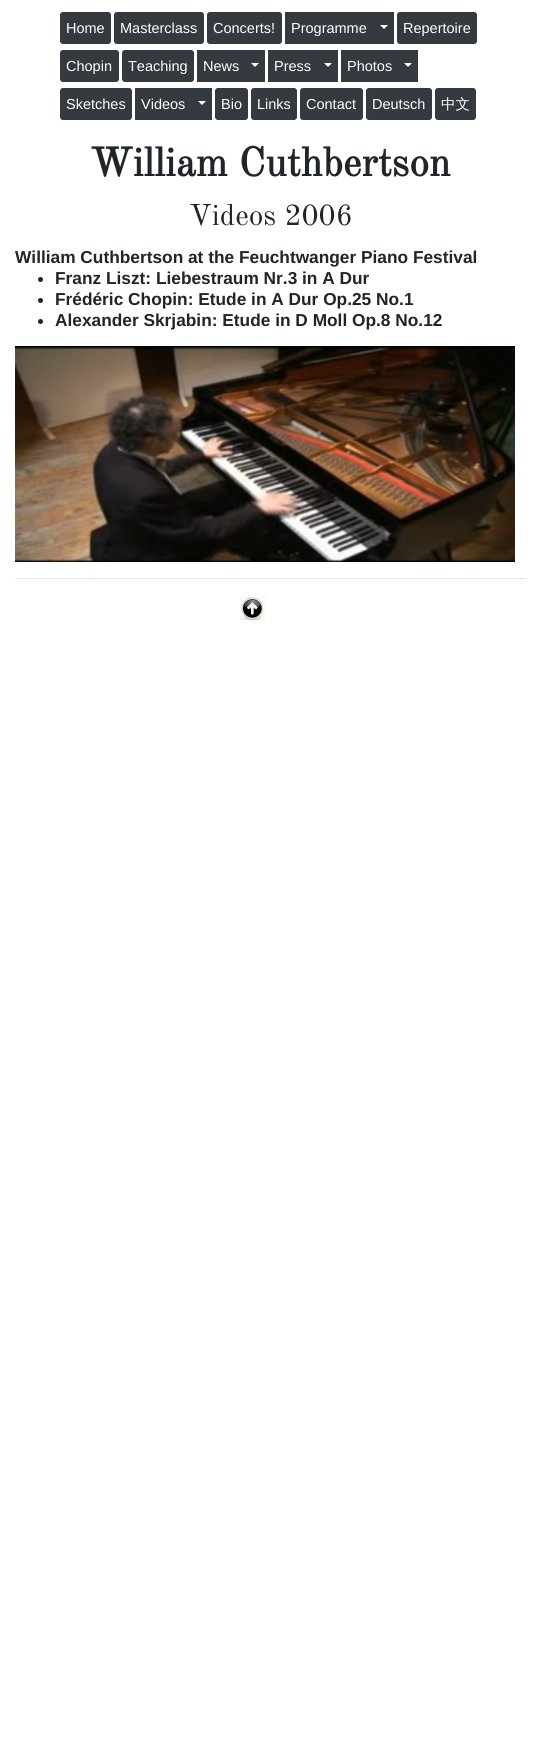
#include <cairo.h>
#include <math.h>
#include <stddef.h>

static cairo_t *ctx;

static void use_color(int r, int g, int b) {
    cairo_set_source_rgb(ctx, r / 255.0, g / 255.0, b / 255.0);
}

static void round_rect(double x, double y, double w, double h, double r) {
    cairo_new_sub_path(ctx);
    cairo_arc(ctx, x + w - r, y + h - r, r, 0, M_PI / 2);
    cairo_arc(ctx, x + r, y + h - r, r, M_PI / 2, M_PI);
    cairo_arc(ctx, x + r, y + r, r, M_PI, 1.5 * M_PI);
    cairo_arc(ctx, x + w - r, y + r, r, 1.5 * M_PI, 2 * M_PI);
    cairo_close_path(ctx);
}

static void picture(const char *path, double x, double y, double w, double h) {
    cairo_surface_t *image = cairo_image_surface_create_from_png(path);
    cairo_save(ctx);
    cairo_set_source_surface(ctx, image, x, y);
    cairo_rectangle(ctx, x, y, w, h);
    cairo_fill(ctx);
    cairo_restore(ctx);
    cairo_surface_destroy(image);
}

int main(void) {
    cairo_surface_t *surface = cairo_image_surface_create(CAIRO_FORMAT_RGB24, 541, 1754);
    ctx = cairo_create(surface);
    cairo_font_options_t *options = cairo_font_options_create();
    cairo_font_options_set_hint_metrics(options, CAIRO_HINT_METRICS_OFF);
    cairo_font_options_set_hint_style(options, CAIRO_HINT_STYLE_NONE);
    cairo_set_font_options(ctx, options);
    cairo_set_miter_limit(ctx, 4);
    use_color(255, 255, 255);
    cairo_paint(ctx);
    use_color(52, 58, 64);
    round_rect(60.5, 12.5, 50, 31, 2.5);
    cairo_fill_preserve(ctx);
    cairo_set_line_width(ctx, 1);
    cairo_stroke(ctx);
    cairo_select_font_face(ctx, "Liberation Sans", CAIRO_FONT_SLANT_NORMAL, CAIRO_FONT_WEIGHT_NORMAL);
    cairo_set_font_size(ctx, 14.5);
    use_color(255, 255, 255);
    cairo_move_to(ctx, 66, 33);
    cairo_show_text(ctx, "Home");
    use_color(52, 58, 64);
    round_rect(114.5, 12.5, 89, 31, 2.5);
    cairo_fill_preserve(ctx);
    cairo_stroke(ctx);
    use_color(255, 255, 255);
    cairo_move_to(ctx, 120, 33);
    cairo_show_text(ctx, "Masterclass");
    use_color(52, 58, 64);
    round_rect(207.5, 12.5, 74, 31, 2.5);
    cairo_fill_preserve(ctx);
    cairo_stroke(ctx);
    use_color(255, 255, 255);
    cairo_move_to(ctx, 213, 33);
    cairo_show_text(ctx, "Concerts!");
    use_color(52, 58, 64);
    cairo_rectangle(ctx, 285, 12, 109, 32);
    cairo_fill(ctx);
    use_color(255, 255, 255);
    cairo_move_to(ctx, 291, 33);
    cairo_show_text(ctx, "Programme");
    cairo_new_path(ctx);
    cairo_move_to(ctx, 380, 25);
    cairo_line_to(ctx, 388, 25);
    cairo_line_to(ctx, 384, 29);
    cairo_close_path(ctx);
    cairo_fill(ctx);
    use_color(52, 58, 64);
    round_rect(397.5, 12.5, 79, 31, 2.5);
    cairo_fill_preserve(ctx);
    cairo_stroke(ctx);
    use_color(255, 255, 255);
    cairo_move_to(ctx, 403, 33);
    cairo_show_text(ctx, "Repertoire");
    use_color(52, 58, 64);
    round_rect(60.5, 50.5, 58, 31, 2.5);
    cairo_fill_preserve(ctx);
    cairo_stroke(ctx);
    use_color(255, 255, 255);
    cairo_move_to(ctx, 66, 71);
    cairo_show_text(ctx, "Chopin");
    use_color(52, 58, 64);
    round_rect(122.5, 50.5, 71, 31, 2.5);
    cairo_fill_preserve(ctx);
    cairo_stroke(ctx);
    use_color(255, 255, 255);
    cairo_move_to(ctx, 128, 71);
    cairo_show_text(ctx, "Teaching");
    use_color(52, 58, 64);
    cairo_rectangle(ctx, 197, 50, 68, 32);
    cairo_fill(ctx);
    use_color(255, 255, 255);
    cairo_move_to(ctx, 203, 71);
    cairo_show_text(ctx, "News");
    cairo_new_path(ctx);
    cairo_move_to(ctx, 251, 63);
    cairo_line_to(ctx, 259, 63);
    cairo_line_to(ctx, 255, 67);
    cairo_close_path(ctx);
    cairo_fill(ctx);
    use_color(52, 58, 64);
    cairo_rectangle(ctx, 268, 50, 70, 32);
    cairo_fill(ctx);
    use_color(255, 255, 255);
    cairo_move_to(ctx, 274, 71);
    cairo_show_text(ctx, "Press");
    cairo_new_path(ctx);
    cairo_move_to(ctx, 324, 63);
    cairo_line_to(ctx, 332, 63);
    cairo_line_to(ctx, 328, 67);
    cairo_close_path(ctx);
    cairo_fill(ctx);
    use_color(52, 58, 64);
    cairo_rectangle(ctx, 341, 50, 77, 32);
    cairo_fill(ctx);
    use_color(255, 255, 255);
    cairo_move_to(ctx, 347, 71);
    cairo_show_text(ctx, "Photos");
    cairo_new_path(ctx);
    cairo_move_to(ctx, 404, 63);
    cairo_line_to(ctx, 412, 63);
    cairo_line_to(ctx, 408, 67);
    cairo_close_path(ctx);
    cairo_fill(ctx);
    use_color(52, 58, 64);
    round_rect(60.5, 88.5, 71, 31, 2.5);
    cairo_fill_preserve(ctx);
    cairo_stroke(ctx);
    use_color(255, 255, 255);
    cairo_move_to(ctx, 66, 109);
    cairo_show_text(ctx, "Sketches");
    use_color(52, 58, 64);
    cairo_rectangle(ctx, 135, 88, 77, 32);
    cairo_fill(ctx);
    use_color(255, 255, 255);
    cairo_move_to(ctx, 141, 109);
    cairo_show_text(ctx, "Videos");
    cairo_new_path(ctx);
    cairo_move_to(ctx, 198, 101);
    cairo_line_to(ctx, 206, 101);
    cairo_line_to(ctx, 202, 105);
    cairo_close_path(ctx);
    cairo_fill(ctx);
    use_color(52, 58, 64);
    round_rect(215.5, 88.5, 32, 31, 2.5);
    cairo_fill_preserve(ctx);
    cairo_stroke(ctx);
    use_color(255, 255, 255);
    cairo_move_to(ctx, 221, 109);
    cairo_show_text(ctx, "Bio");
    use_color(52, 58, 64);
    round_rect(251.5, 88.5, 45, 31, 2.5);
    cairo_fill_preserve(ctx);
    cairo_stroke(ctx);
    use_color(255, 255, 255);
    cairo_move_to(ctx, 257, 109);
    cairo_show_text(ctx, "Links");
    use_color(52, 58, 64);
    round_rect(300.5, 88.5, 62, 31, 2.5);
    cairo_fill_preserve(ctx);
    cairo_stroke(ctx);
    use_color(255, 255, 255);
    cairo_move_to(ctx, 306, 109);
    cairo_show_text(ctx, "Contact");
    use_color(52, 58, 64);
    round_rect(366.5, 88.5, 65, 31, 2.5);
    cairo_fill_preserve(ctx);
    cairo_stroke(ctx);
    use_color(255, 255, 255);
    cairo_move_to(ctx, 372, 109);
    cairo_show_text(ctx, "Deutsch");
    use_color(52, 58, 64);
    round_rect(435.5, 88.5, 40, 31, 2.5);
    cairo_fill_preserve(ctx);
    cairo_stroke(ctx);
    cairo_select_font_face(ctx, "WenQuanYi Zen Hei Medium", CAIRO_FONT_SLANT_NORMAL, CAIRO_FONT_WEIGHT_NORMAL);
    use_color(255, 255, 255);
    cairo_move_to(ctx, 441, 109);
    cairo_show_text(ctx, "中文");
    cairo_select_font_face(ctx, "Old Standard TT", CAIRO_FONT_SLANT_NORMAL, CAIRO_FONT_WEIGHT_BOLD);
    cairo_set_font_size(ctx, 40);
    use_color(33, 37, 41);
    cairo_move_to(ctx, 90, 176);
    cairo_show_text(ctx, "William Cuthbertson");
    cairo_select_font_face(ctx, "Old Standard TT", CAIRO_FONT_SLANT_NORMAL, CAIRO_FONT_WEIGHT_NORMAL);
    cairo_set_font_size(ctx, 29.5);
    cairo_move_to(ctx, 189, 225);
    cairo_show_text(ctx, "Videos 2006");
    cairo_select_font_face(ctx, "Liberation Sans", CAIRO_FONT_SLANT_NORMAL, CAIRO_FONT_WEIGHT_BOLD);
    cairo_set_font_size(ctx, 17.3);
    cairo_move_to(ctx, 15, 263);
    cairo_show_text(ctx, "William Cuthbertson at the Feuchtwanger Piano Festival");
    cairo_new_path(ctx);
    cairo_arc(ctx, 40.5, 279.5, 2.5, 0, 2 * M_PI);
    cairo_fill(ctx);
    cairo_move_to(ctx, 55, 284);
    cairo_show_text(ctx, "Franz Liszt: Liebestraum Nr.3 in A Dur");
    cairo_new_path(ctx);
    cairo_arc(ctx, 40.5, 300.5, 2.5, 0, 2 * M_PI);
    cairo_fill(ctx);
    cairo_move_to(ctx, 55, 305);
    cairo_show_text(ctx, "Frédéric Chopin: Etude in A Dur Op.25 No.1");
    cairo_new_path(ctx);
    cairo_arc(ctx, 40.5, 321.5, 2.5, 0, 2 * M_PI);
    cairo_fill(ctx);
    cairo_move_to(ctx, 55, 326);
    cairo_show_text(ctx, "Alexander Skrjabin: Etude in D Moll Op.8 No.12");
    picture("img1.png", 15, 346, 500, 216);
    use_color(230, 230, 230);
    cairo_rectangle(ctx, 15, 578, 511, 1);
    cairo_fill(ctx);
    picture("img2.png", 240, 597, 25, 23);
    cairo_surface_write_to_png(surface, "result.png");
    cairo_font_options_destroy(options);
    cairo_destroy(ctx);
    cairo_surface_destroy(surface);
    return 0;
}
